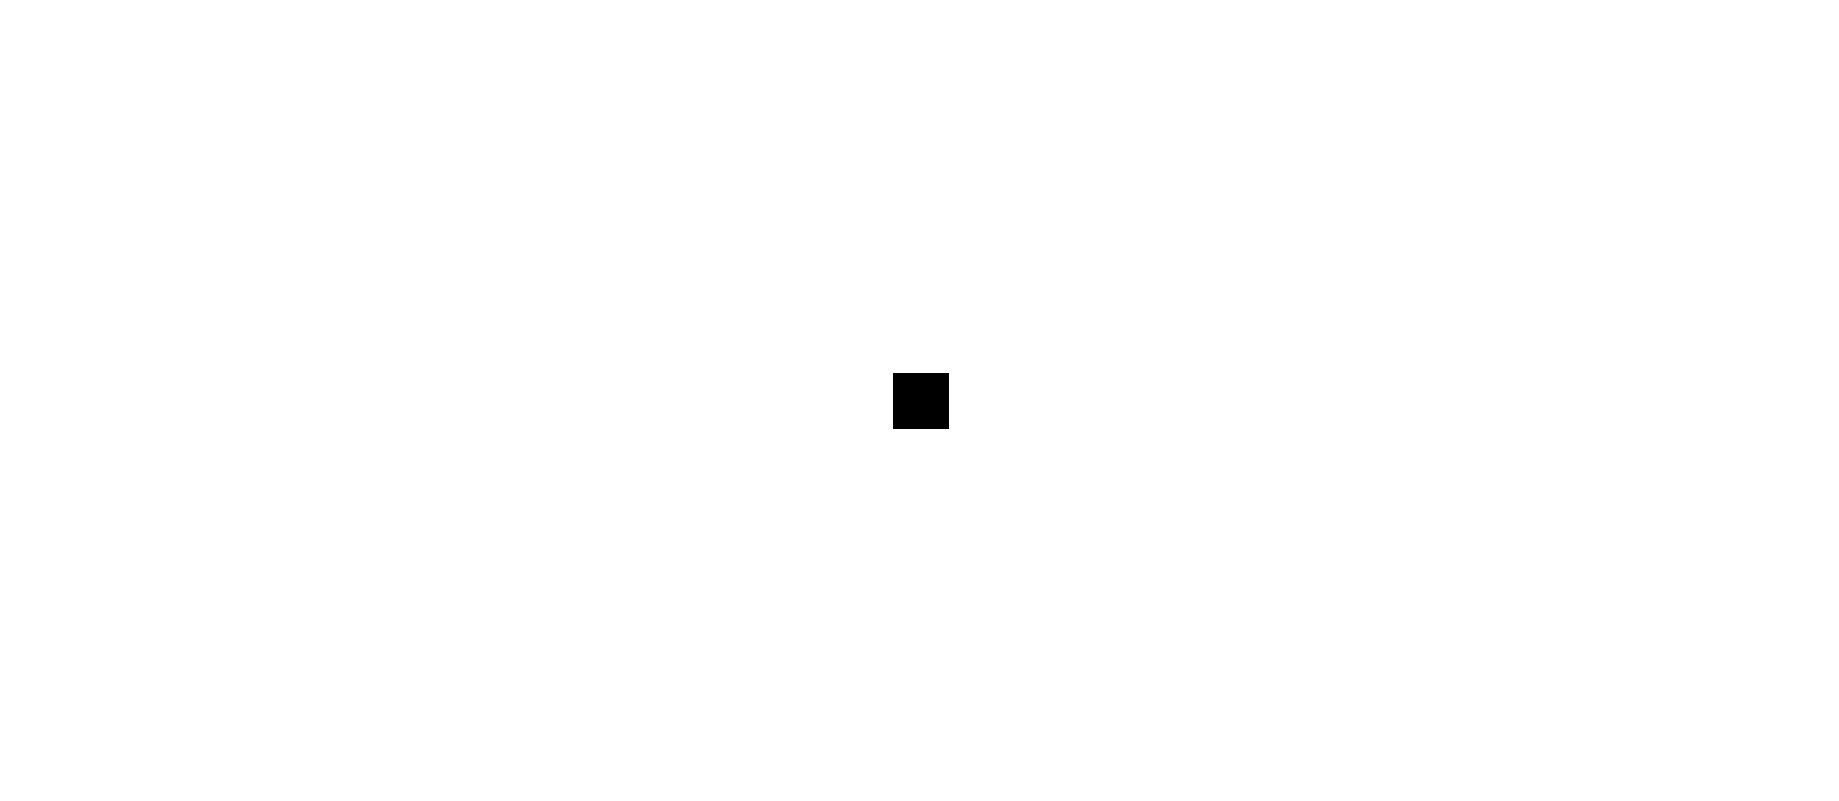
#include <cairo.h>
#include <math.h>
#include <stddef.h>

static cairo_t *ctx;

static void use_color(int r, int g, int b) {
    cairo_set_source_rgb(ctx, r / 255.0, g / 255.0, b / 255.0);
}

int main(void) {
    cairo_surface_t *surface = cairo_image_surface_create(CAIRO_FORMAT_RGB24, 1839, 801);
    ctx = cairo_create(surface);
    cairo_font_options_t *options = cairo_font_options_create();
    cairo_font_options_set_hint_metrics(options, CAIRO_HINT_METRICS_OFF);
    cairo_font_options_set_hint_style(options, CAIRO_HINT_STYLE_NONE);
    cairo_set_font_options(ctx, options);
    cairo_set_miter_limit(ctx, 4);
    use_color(255, 255, 255);
    cairo_paint(ctx);
    use_color(0, 0, 0);
    cairo_rectangle(ctx, 893, 373, 56, 56);
    cairo_fill(ctx);
    cairo_surface_write_to_png(surface, "result.png");
    cairo_font_options_destroy(options);
    cairo_destroy(ctx);
    cairo_surface_destroy(surface);
    return 0;
}
